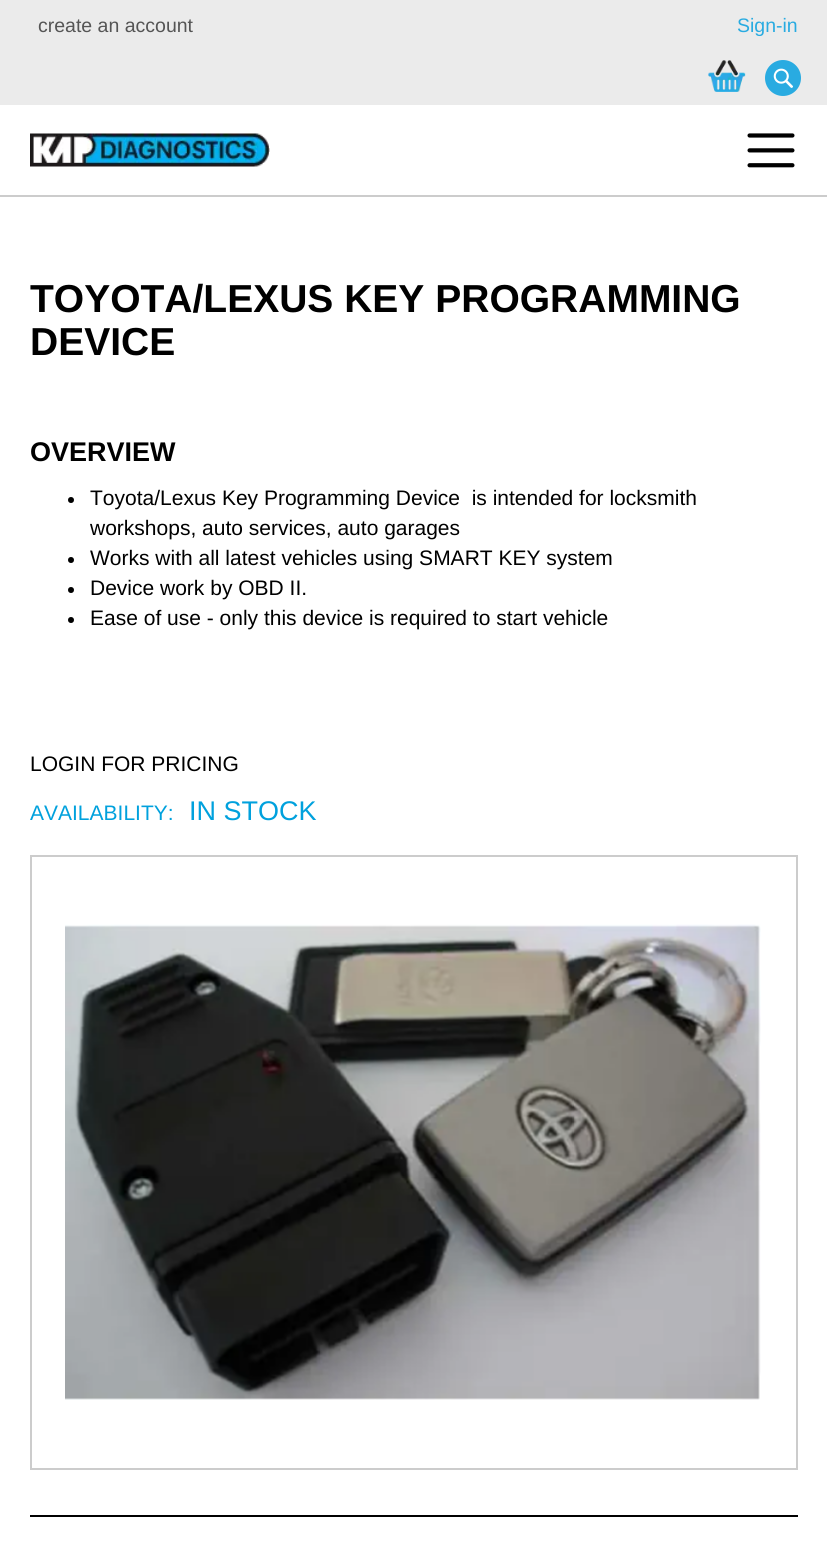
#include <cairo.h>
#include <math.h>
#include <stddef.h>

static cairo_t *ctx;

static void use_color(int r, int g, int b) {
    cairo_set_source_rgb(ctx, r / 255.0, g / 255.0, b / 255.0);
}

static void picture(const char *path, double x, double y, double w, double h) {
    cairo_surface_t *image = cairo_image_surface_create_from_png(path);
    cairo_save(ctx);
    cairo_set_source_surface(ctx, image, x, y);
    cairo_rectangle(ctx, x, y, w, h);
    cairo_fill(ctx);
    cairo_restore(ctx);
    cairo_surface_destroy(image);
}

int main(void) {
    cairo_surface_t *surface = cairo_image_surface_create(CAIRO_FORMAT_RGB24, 827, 1541);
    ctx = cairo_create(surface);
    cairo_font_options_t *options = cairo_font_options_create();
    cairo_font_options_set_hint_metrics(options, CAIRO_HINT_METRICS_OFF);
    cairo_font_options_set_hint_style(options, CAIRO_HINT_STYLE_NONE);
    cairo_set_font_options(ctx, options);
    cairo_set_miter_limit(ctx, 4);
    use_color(255, 255, 255);
    cairo_paint(ctx);
    use_color(235, 235, 235);
    cairo_rectangle(ctx, 0, 0, 827, 105);
    cairo_fill(ctx);
    cairo_select_font_face(ctx, "Liberation Sans", CAIRO_FONT_SLANT_NORMAL, CAIRO_FONT_WEIGHT_NORMAL);
    cairo_set_font_size(ctx, 19.5);
    use_color(85, 85, 85);
    cairo_move_to(ctx, 38, 32);
    cairo_show_text(ctx, "create an account");
    use_color(41, 171, 225);
    cairo_move_to(ctx, 737, 32);
    cairo_show_text(ctx, "Sign-in");
    cairo_new_path(ctx);
    cairo_arc(ctx, 783, 78, 18, 0, 2 * M_PI);
    cairo_fill(ctx);
    picture("img1.png", 773, 68, 20, 20);
    use_color(204, 204, 204);
    cairo_rectangle(ctx, 0, 195, 827, 2);
    cairo_fill(ctx);
    picture("img2.png", 708, 60, 38, 32);
    picture("img3.png", 30, 133, 240, 34);
    picture("img4.png", 747, 133, 48, 35);
    cairo_select_font_face(ctx, "Liberation Sans", CAIRO_FONT_SLANT_NORMAL, CAIRO_FONT_WEIGHT_BOLD);
    cairo_set_font_size(ctx, 39);
    use_color(0, 0, 0);
    cairo_move_to(ctx, 30, 312);
    cairo_show_text(ctx, "TOYOTA/LEXUS KEY PROGRAMMING");
    cairo_move_to(ctx, 30, 355);
    cairo_show_text(ctx, "DEVICE");
    cairo_set_font_size(ctx, 27);
    cairo_move_to(ctx, 30, 461);
    cairo_show_text(ctx, "OVERVIEW");
    cairo_new_path(ctx);
    cairo_arc(ctx, 71, 500, 3, 0, 2 * M_PI);
    cairo_fill(ctx);
    cairo_select_font_face(ctx, "Liberation Sans", CAIRO_FONT_SLANT_NORMAL, CAIRO_FONT_WEIGHT_NORMAL);
    cairo_set_font_size(ctx, 21);
    cairo_move_to(ctx, 90, 505);
    cairo_show_text(ctx, "Toyota/Lexus Key Programming Device  is intended for locksmith");
    cairo_move_to(ctx, 90, 535);
    cairo_show_text(ctx, "workshops, auto services, auto garages");
    cairo_new_path(ctx);
    cairo_arc(ctx, 71, 560, 3, 0, 2 * M_PI);
    cairo_fill(ctx);
    cairo_move_to(ctx, 90, 565);
    cairo_show_text(ctx, "Works with all latest vehicles using SMART KEY system");
    cairo_new_path(ctx);
    cairo_arc(ctx, 71, 590, 3, 0, 2 * M_PI);
    cairo_fill(ctx);
    cairo_move_to(ctx, 90, 595);
    cairo_show_text(ctx, "Device work by OBD II.");
    cairo_new_path(ctx);
    cairo_arc(ctx, 71, 620, 3, 0, 2 * M_PI);
    cairo_fill(ctx);
    cairo_move_to(ctx, 90, 625);
    cairo_show_text(ctx, "Ease of use - only this device is required to start vehicle");
    cairo_move_to(ctx, 30, 771);
    cairo_show_text(ctx, "LOGIN FOR PRICING");
    use_color(0, 161, 221);
    cairo_move_to(ctx, 30, 820);
    cairo_show_text(ctx, "AVAILABILITY:");
    cairo_set_font_size(ctx, 27);
    cairo_move_to(ctx, 189, 820);
    cairo_show_text(ctx, "IN STOCK");
    cairo_rectangle(ctx, 31, 856, 766, 613);
    use_color(204, 204, 204);
    cairo_stroke(ctx);
    picture("img5.png", 65, 924, 696, 476);
    use_color(0, 0, 0);
    cairo_rectangle(ctx, 30, 1515, 768, 2);
    cairo_fill(ctx);
    cairo_surface_write_to_png(surface, "result.png");
    cairo_font_options_destroy(options);
    cairo_destroy(ctx);
    cairo_surface_destroy(surface);
    return 0;
}
